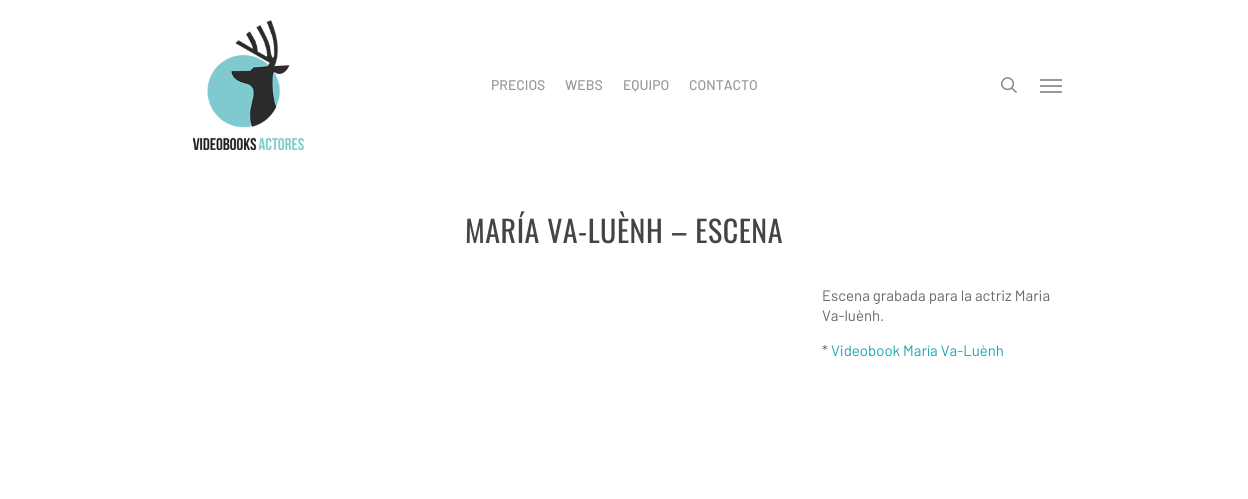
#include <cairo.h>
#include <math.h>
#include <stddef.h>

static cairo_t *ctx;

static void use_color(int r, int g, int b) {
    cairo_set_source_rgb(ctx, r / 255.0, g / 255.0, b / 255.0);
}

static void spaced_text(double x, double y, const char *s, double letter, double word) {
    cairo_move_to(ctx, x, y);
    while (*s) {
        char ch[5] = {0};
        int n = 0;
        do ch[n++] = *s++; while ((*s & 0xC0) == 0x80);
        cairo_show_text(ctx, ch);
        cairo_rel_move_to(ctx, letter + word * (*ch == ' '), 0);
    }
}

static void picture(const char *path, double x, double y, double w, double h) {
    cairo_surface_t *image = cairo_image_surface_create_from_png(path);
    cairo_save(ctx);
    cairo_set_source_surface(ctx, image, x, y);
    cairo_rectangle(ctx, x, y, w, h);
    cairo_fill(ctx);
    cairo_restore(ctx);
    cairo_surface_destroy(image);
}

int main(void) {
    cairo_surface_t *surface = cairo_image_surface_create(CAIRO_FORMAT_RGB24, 1248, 499);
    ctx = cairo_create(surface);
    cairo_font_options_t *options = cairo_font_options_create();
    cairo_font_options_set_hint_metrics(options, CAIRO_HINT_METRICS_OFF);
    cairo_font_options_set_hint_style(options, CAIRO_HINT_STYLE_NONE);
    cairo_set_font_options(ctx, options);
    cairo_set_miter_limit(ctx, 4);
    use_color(255, 255, 255);
    cairo_paint(ctx);
    picture("img1.png", 192, 20, 112, 130);
    cairo_select_font_face(ctx, "Barlow Medium", CAIRO_FONT_SLANT_NORMAL, CAIRO_FONT_WEIGHT_NORMAL);
    cairo_set_font_size(ctx, 14);
    use_color(153, 153, 153);
    cairo_move_to(ctx, 491, 90);
    cairo_show_text(ctx, "PRECIOS");
    cairo_move_to(ctx, 565, 90);
    cairo_show_text(ctx, "WEBS");
    cairo_move_to(ctx, 623, 90);
    cairo_show_text(ctx, "EQUIPO");
    cairo_move_to(ctx, 689, 90);
    cairo_show_text(ctx, "CONTACTO");
    picture("img2.png", 1001, 77, 16, 16);
    cairo_rectangle(ctx, 1040, 79, 22, 2);
    cairo_fill(ctx);
    cairo_rectangle(ctx, 1040, 91, 22, 2);
    cairo_fill(ctx);
    cairo_rectangle(ctx, 1040, 85, 22, 2);
    cairo_fill(ctx);
    cairo_select_font_face(ctx, "Oswald", CAIRO_FONT_SLANT_NORMAL, CAIRO_FONT_WEIGHT_NORMAL);
    cairo_set_font_size(ctx, 30);
    use_color(68, 68, 68);
    spaced_text(465, 243, "MARÍA VA-LUÈNH – ESCENA", 0.5, 0);
    cairo_select_font_face(ctx, "Barlow", CAIRO_FONT_SLANT_NORMAL, CAIRO_FONT_WEIGHT_NORMAL);
    cairo_set_font_size(ctx, 15);
    use_color(103, 103, 103);
    cairo_move_to(ctx, 822, 301);
    cairo_show_text(ctx, "Escena grabada para la actriz Maria");
    cairo_move_to(ctx, 822, 321);
    cairo_show_text(ctx, "Va-luènh.");
    cairo_move_to(ctx, 822, 356);
    cairo_show_text(ctx, "*");
    use_color(26, 165, 175);
    cairo_move_to(ctx, 831, 356);
    cairo_show_text(ctx, "Videobook María Va-Luènh");
    cairo_surface_write_to_png(surface, "result.png");
    cairo_font_options_destroy(options);
    cairo_destroy(ctx);
    cairo_surface_destroy(surface);
    return 0;
}
